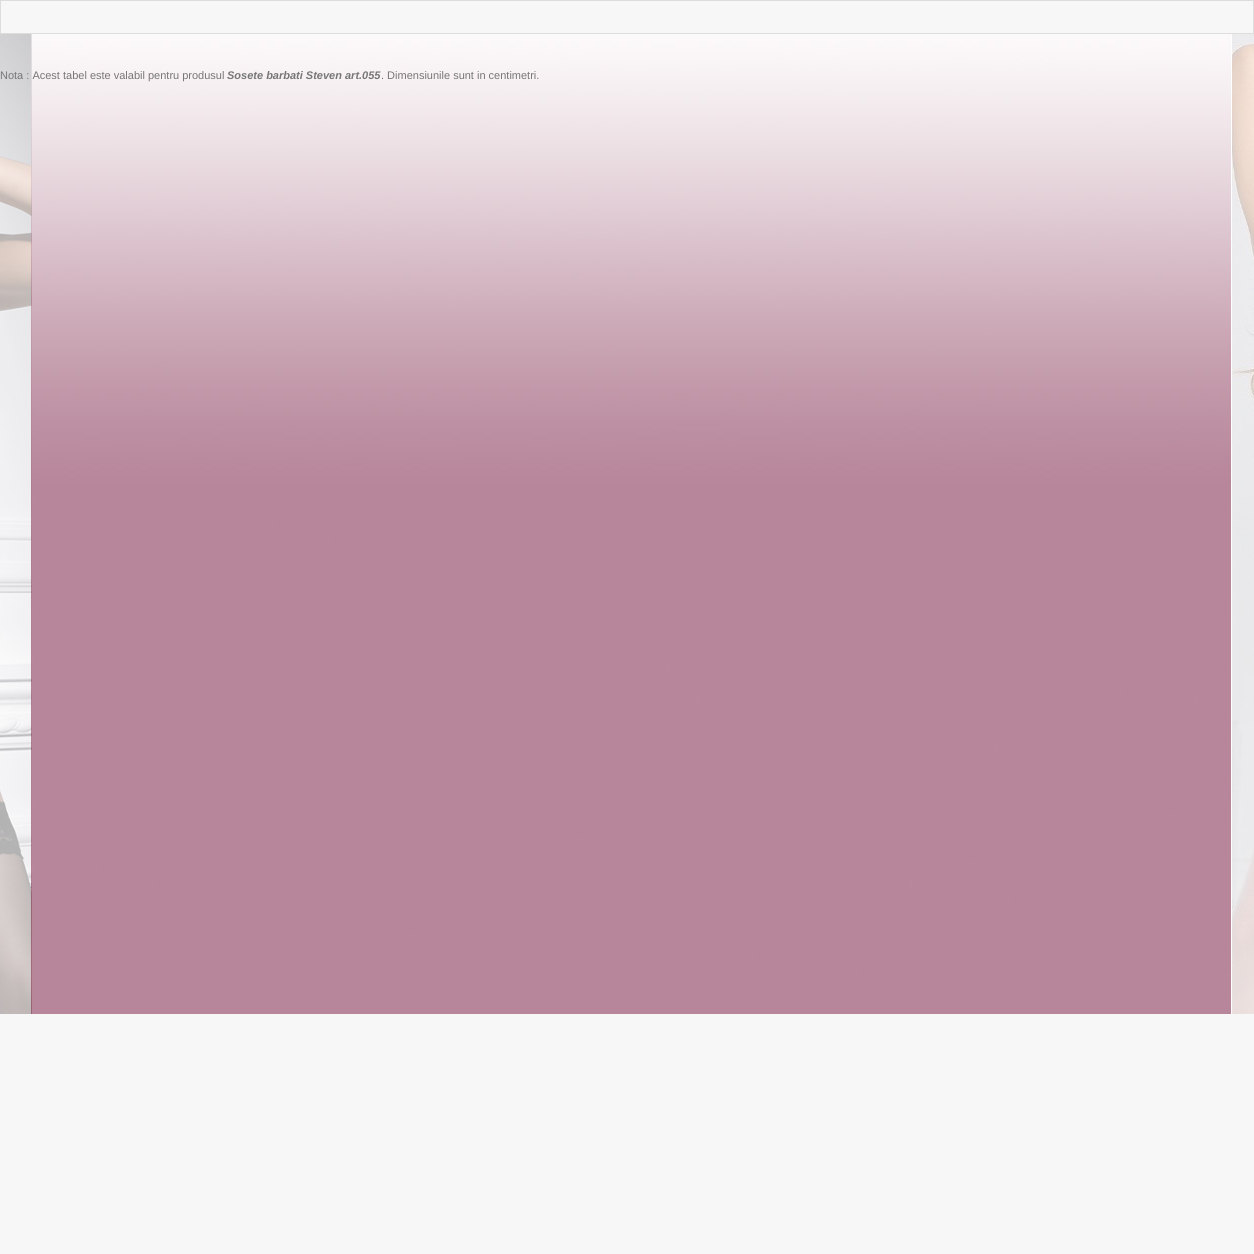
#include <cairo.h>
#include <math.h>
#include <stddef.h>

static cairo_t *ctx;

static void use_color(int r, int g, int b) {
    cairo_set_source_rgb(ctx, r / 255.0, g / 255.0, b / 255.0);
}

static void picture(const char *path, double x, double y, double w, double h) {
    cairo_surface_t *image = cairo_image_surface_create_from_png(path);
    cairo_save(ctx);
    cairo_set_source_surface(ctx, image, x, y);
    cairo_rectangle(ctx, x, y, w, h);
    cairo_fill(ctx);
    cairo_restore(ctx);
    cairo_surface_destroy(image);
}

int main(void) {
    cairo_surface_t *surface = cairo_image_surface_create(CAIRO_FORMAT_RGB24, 1254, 1254);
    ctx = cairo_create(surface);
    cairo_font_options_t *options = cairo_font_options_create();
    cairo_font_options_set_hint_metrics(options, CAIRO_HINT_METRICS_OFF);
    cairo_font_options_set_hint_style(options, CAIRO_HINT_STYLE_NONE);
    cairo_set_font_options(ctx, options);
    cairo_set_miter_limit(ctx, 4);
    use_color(247, 247, 247);
    cairo_paint(ctx);
    picture("img1.png", 0, 34, 1254, 980);
    use_color(221, 221, 221);
    cairo_rectangle(ctx, 0, 0, 1254, 1);
    cairo_fill(ctx);
    cairo_rectangle(ctx, 1253, 0, 1, 34);
    cairo_fill(ctx);
    cairo_rectangle(ctx, 0, 33, 1254, 1);
    cairo_fill(ctx);
    cairo_rectangle(ctx, 0, 0, 1, 34);
    cairo_fill(ctx);
    cairo_select_font_face(ctx, "Liberation Sans", CAIRO_FONT_SLANT_NORMAL, CAIRO_FONT_WEIGHT_NORMAL);
    cairo_set_font_size(ctx, 11);
    use_color(118, 118, 118);
    cairo_move_to(ctx, 0, 79);
    cairo_show_text(ctx, "Nota : Acest tabel este valabil pentru produsul");
    cairo_select_font_face(ctx, "Liberation Sans", CAIRO_FONT_SLANT_ITALIC, CAIRO_FONT_WEIGHT_BOLD);
    cairo_move_to(ctx, 227, 79);
    cairo_show_text(ctx, "Sosete barbati Steven art.055");
    cairo_select_font_face(ctx, "Liberation Sans", CAIRO_FONT_SLANT_NORMAL, CAIRO_FONT_WEIGHT_NORMAL);
    cairo_move_to(ctx, 381, 79);
    cairo_show_text(ctx, ". Dimensiunile sunt in centimetri.");
    cairo_surface_write_to_png(surface, "result.png");
    cairo_font_options_destroy(options);
    cairo_destroy(ctx);
    cairo_surface_destroy(surface);
    return 0;
}
